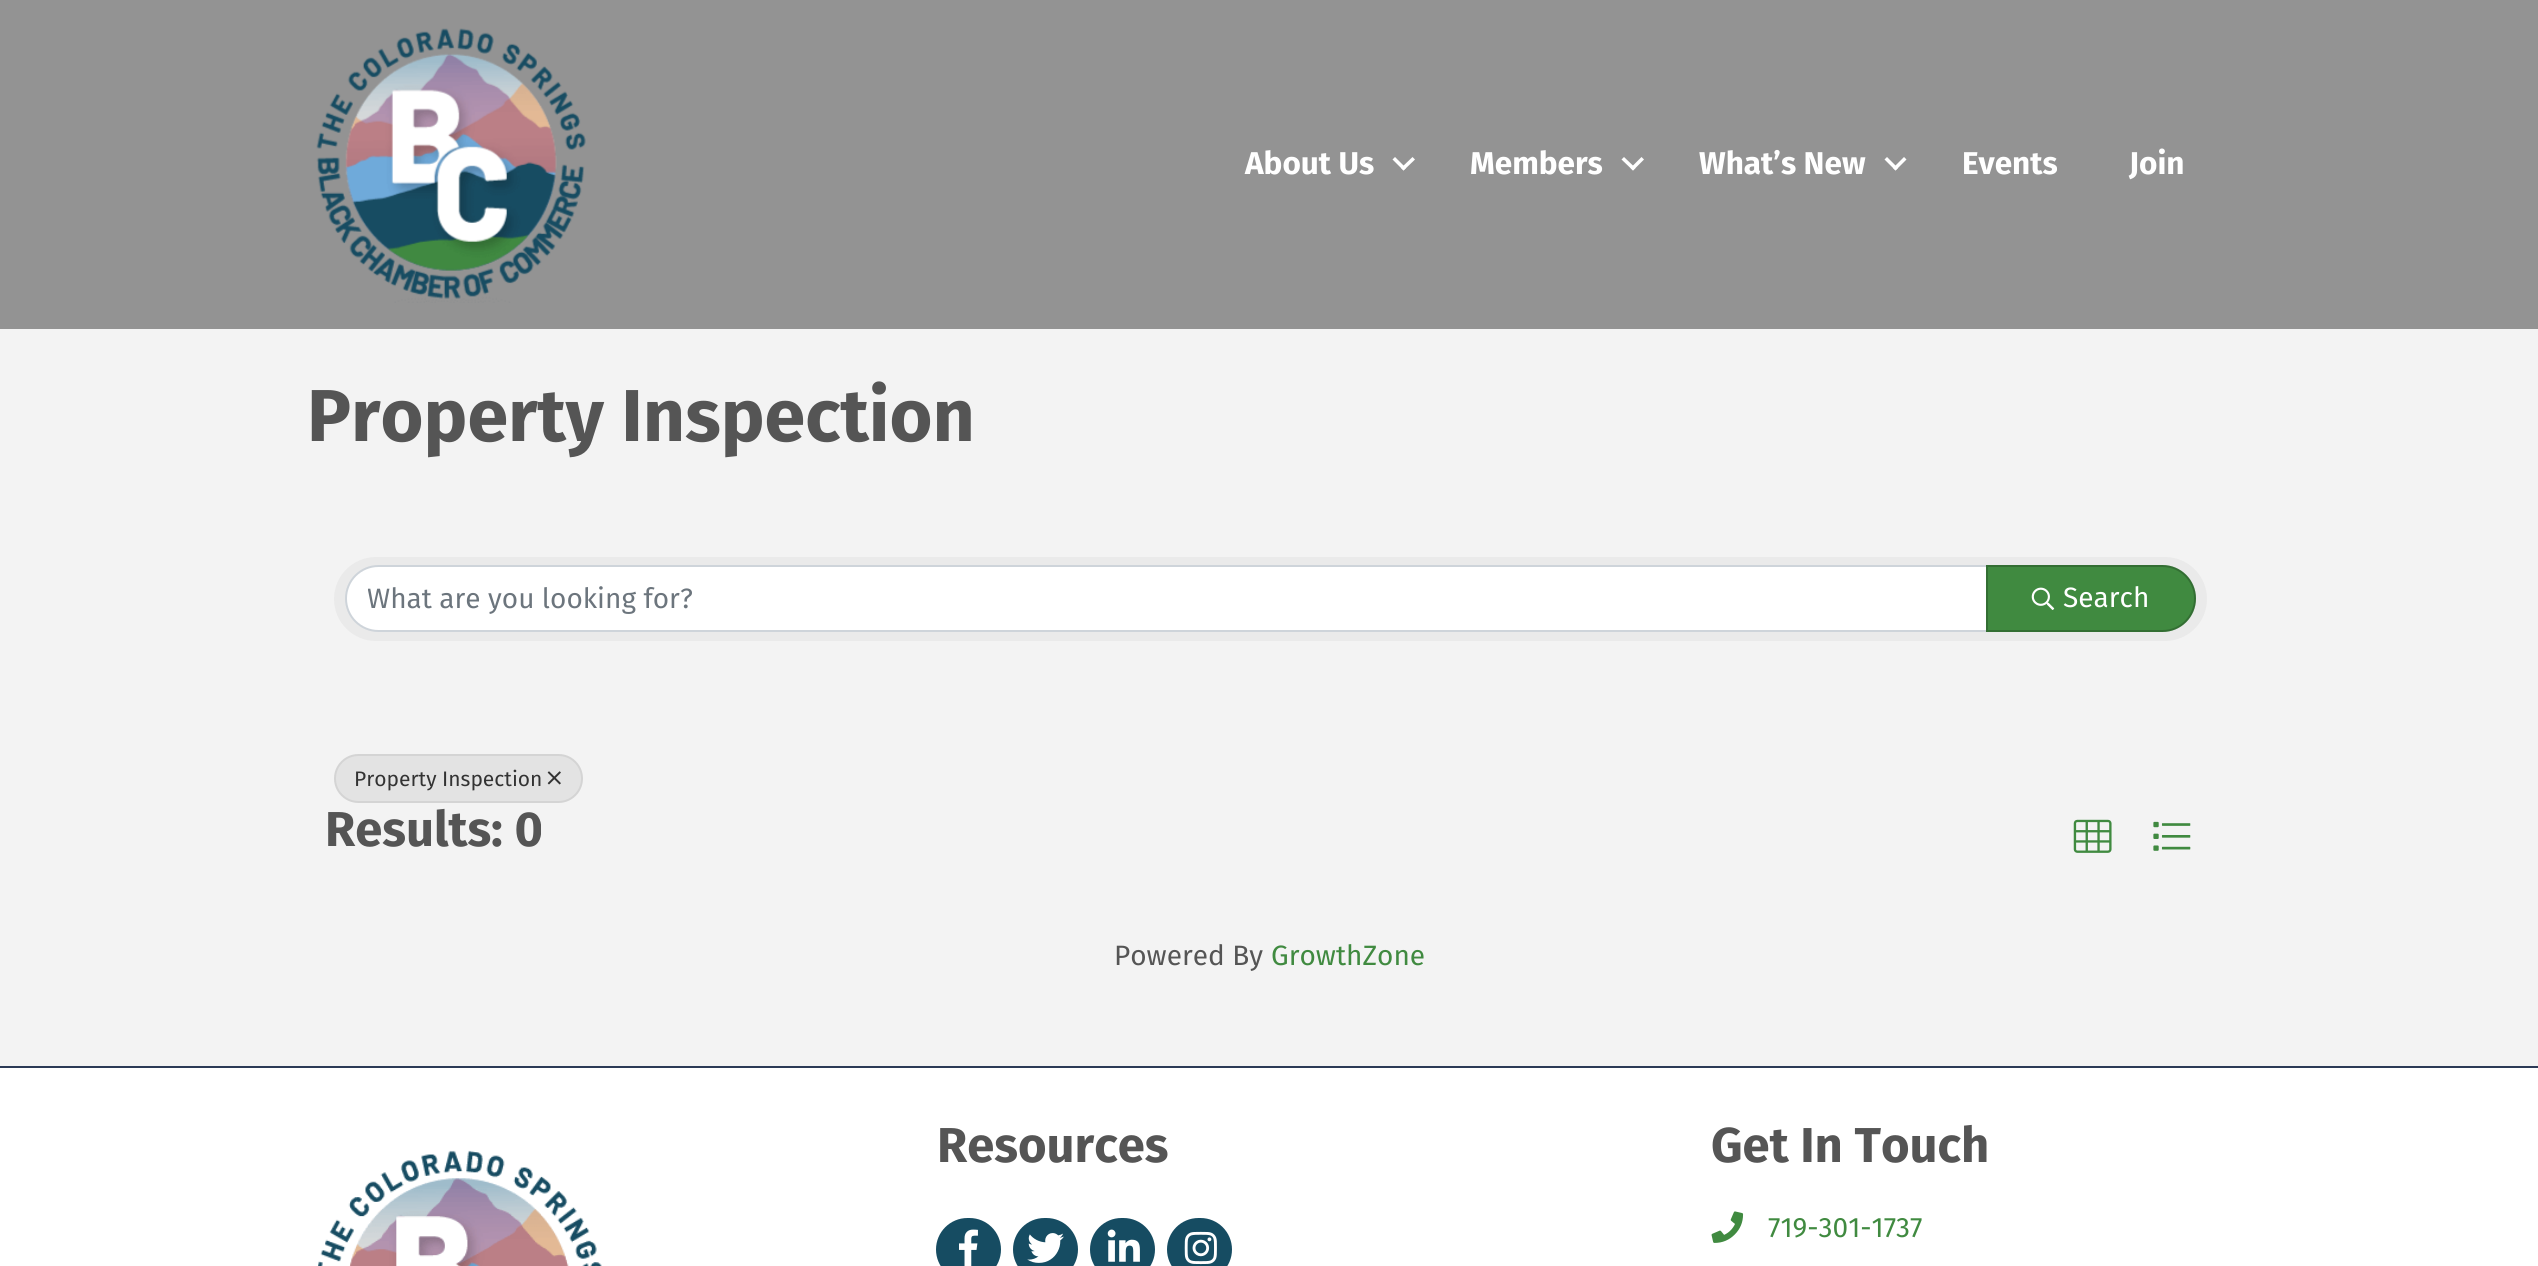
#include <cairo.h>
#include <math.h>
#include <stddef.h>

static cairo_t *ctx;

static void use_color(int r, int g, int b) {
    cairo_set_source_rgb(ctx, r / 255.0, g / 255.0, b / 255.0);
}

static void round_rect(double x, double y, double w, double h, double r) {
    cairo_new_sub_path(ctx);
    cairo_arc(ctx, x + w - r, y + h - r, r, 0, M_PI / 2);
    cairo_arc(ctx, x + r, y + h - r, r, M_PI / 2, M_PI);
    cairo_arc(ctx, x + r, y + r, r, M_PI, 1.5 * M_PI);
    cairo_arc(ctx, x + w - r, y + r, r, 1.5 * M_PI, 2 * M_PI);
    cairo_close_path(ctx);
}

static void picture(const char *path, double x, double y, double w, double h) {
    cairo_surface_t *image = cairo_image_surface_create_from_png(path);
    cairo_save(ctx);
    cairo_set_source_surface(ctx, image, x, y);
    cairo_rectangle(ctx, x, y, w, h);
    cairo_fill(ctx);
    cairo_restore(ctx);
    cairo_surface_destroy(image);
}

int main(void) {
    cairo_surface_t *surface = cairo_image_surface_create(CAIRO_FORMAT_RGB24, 2538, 1266);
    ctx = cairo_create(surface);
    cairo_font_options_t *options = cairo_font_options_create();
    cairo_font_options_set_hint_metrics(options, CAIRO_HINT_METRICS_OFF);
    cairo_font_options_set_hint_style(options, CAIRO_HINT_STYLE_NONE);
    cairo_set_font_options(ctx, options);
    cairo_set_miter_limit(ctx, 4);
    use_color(243, 243, 243);
    cairo_paint(ctx);
    use_color(147, 147, 147);
    cairo_rectangle(ctx, 0, 0, 2538, 329);
    cairo_fill(ctx);
    picture("img1.png", 316, 28, 270, 275);
    cairo_select_font_face(ctx, "Fira Sans", CAIRO_FONT_SLANT_NORMAL, CAIRO_FONT_WEIGHT_BOLD);
    cairo_set_font_size(ctx, 31.5);
    use_color(255, 255, 255);
    cairo_move_to(ctx, 1245, 174);
    cairo_show_text(ctx, "About Us");
    cairo_new_path(ctx);
    cairo_move_to(ctx, 1412.5, 157);
    cairo_line_to(ctx, 1415, 159.5);
    cairo_line_to(ctx, 1403.5, 170.5);
    cairo_line_to(ctx, 1401, 168);
    cairo_close_path(ctx);
    cairo_fill(ctx);
    cairo_new_path(ctx);
    cairo_move_to(ctx, 1395, 157);
    cairo_line_to(ctx, 1406, 168);
    cairo_line_to(ctx, 1403.5, 170.5);
    cairo_line_to(ctx, 1392.5, 159.5);
    cairo_close_path(ctx);
    cairo_fill(ctx);
    cairo_move_to(ctx, 1470, 174);
    cairo_show_text(ctx, "Members");
    cairo_new_path(ctx);
    cairo_move_to(ctx, 1641.5, 157);
    cairo_line_to(ctx, 1644, 159.5);
    cairo_line_to(ctx, 1633, 170.5);
    cairo_line_to(ctx, 1630.5, 168);
    cairo_close_path(ctx);
    cairo_fill(ctx);
    cairo_new_path(ctx);
    cairo_move_to(ctx, 1624, 157);
    cairo_line_to(ctx, 1635.5, 168);
    cairo_line_to(ctx, 1633, 170.5);
    cairo_line_to(ctx, 1621.5, 159.5);
    cairo_close_path(ctx);
    cairo_fill(ctx);
    cairo_move_to(ctx, 1699, 174);
    cairo_show_text(ctx, "What’s New");
    cairo_new_path(ctx);
    cairo_move_to(ctx, 1904, 157);
    cairo_line_to(ctx, 1906.5, 159.5);
    cairo_line_to(ctx, 1895.5, 170.5);
    cairo_line_to(ctx, 1893, 168);
    cairo_close_path(ctx);
    cairo_fill(ctx);
    cairo_new_path(ctx);
    cairo_move_to(ctx, 1887, 157);
    cairo_line_to(ctx, 1898, 168);
    cairo_line_to(ctx, 1895.5, 170.5);
    cairo_line_to(ctx, 1884.5, 159.5);
    cairo_close_path(ctx);
    cairo_fill(ctx);
    cairo_move_to(ctx, 1962, 174);
    cairo_show_text(ctx, "Events");
    cairo_move_to(ctx, 2129, 174);
    cairo_show_text(ctx, "Join");
    cairo_set_font_size(ctx, 73.5);
    use_color(85, 85, 85);
    cairo_move_to(ctx, 307, 441);
    cairo_show_text(ctx, "Property Inspection");
    use_color(234, 234, 234);
    round_rect(334, 557, 1873, 84, 42);
    cairo_fill(ctx);
    use_color(255, 255, 255);
    cairo_new_path(ctx);
    cairo_move_to(ctx, 378.5, 566);
    cairo_line_to(ctx, 1987, 566);
    cairo_line_to(ctx, 1987, 631);
    cairo_line_to(ctx, 378.5, 631);
    cairo_curve_to(ctx, 360.5, 631, 346, 616.5, 346, 598.5);
    cairo_curve_to(ctx, 346, 580.5, 360.5, 566, 378.5, 566);
    cairo_close_path(ctx);
    cairo_fill_preserve(ctx);
    use_color(206, 212, 218);
    cairo_stroke(ctx);
    cairo_save(ctx);
    cairo_rectangle(ctx, 368, 581, 1597, 33);
    cairo_clip(ctx);
    cairo_select_font_face(ctx, "Fira Sans", CAIRO_FONT_SLANT_NORMAL, CAIRO_FONT_WEIGHT_NORMAL);
    cairo_set_font_size(ctx, 28);
    use_color(108, 117, 125);
    cairo_move_to(ctx, 367, 608);
    cairo_show_text(ctx, "What are you looking for?");
    cairo_restore(ctx);
    use_color(64, 138, 64);
    cairo_new_path(ctx);
    cairo_move_to(ctx, 1986, 565);
    cairo_line_to(ctx, 2162.5, 565);
    cairo_curve_to(ctx, 2181, 565, 2196, 580, 2196, 598.5);
    cairo_curve_to(ctx, 2196, 617, 2181, 632, 2162.5, 632);
    cairo_line_to(ctx, 1986, 632);
    cairo_close_path(ctx);
    cairo_fill(ctx);
    cairo_new_path(ctx);
    cairo_move_to(ctx, 1987, 566);
    cairo_line_to(ctx, 2162.5, 566);
    cairo_curve_to(ctx, 2180.5, 566, 2195, 580.5, 2195, 598.5);
    cairo_curve_to(ctx, 2195, 616.5, 2180.5, 631, 2162.5, 631);
    cairo_line_to(ctx, 1987, 631);
    cairo_close_path(ctx);
    cairo_set_source_rgba(ctx, 0, 0, 0, 0.2);
    cairo_stroke(ctx);
    picture("img2.png", 2031, 587, 24, 23);
    cairo_select_font_face(ctx, "Fira Sans", CAIRO_FONT_SLANT_NORMAL, CAIRO_FONT_WEIGHT_NORMAL);
    cairo_set_font_size(ctx, 28);
    use_color(255, 255, 255);
    cairo_move_to(ctx, 2063, 607);
    cairo_show_text(ctx, "Search");
    use_color(227, 227, 227);
    round_rect(334, 754, 249, 49, 24.5);
    cairo_fill(ctx);
    round_rect(335, 755, 247, 47, 23.5);
    cairo_set_source_rgba(ctx, 0, 0, 0, 0.07);
    cairo_stroke(ctx);
    cairo_set_font_size(ctx, 21);
    use_color(51, 51, 51);
    cairo_move_to(ctx, 354, 786);
    cairo_show_text(ctx, "Property Inspection");
    picture("img3.png", 547, 771, 14, 14);
    cairo_select_font_face(ctx, "Fira Sans", CAIRO_FONT_SLANT_NORMAL, CAIRO_FONT_WEIGHT_BOLD);
    cairo_set_font_size(ctx, 49);
    use_color(85, 85, 85);
    cairo_move_to(ctx, 325, 846);
    cairo_show_text(ctx, "Results: 0");
    picture("img4.png", 2073, 819, 39, 34);
    picture("img5.png", 2153, 821, 38, 30);
    cairo_select_font_face(ctx, "Fira Sans", CAIRO_FONT_SLANT_NORMAL, CAIRO_FONT_WEIGHT_NORMAL);
    cairo_set_font_size(ctx, 28);
    cairo_move_to(ctx, 1114, 965);
    cairo_show_text(ctx, "Powered By");
    use_color(64, 138, 64);
    cairo_move_to(ctx, 1271, 965);
    cairo_show_text(ctx, "GrowthZone");
    use_color(255, 255, 255);
    cairo_rectangle(ctx, 0, 1068, 2538, 198);
    cairo_fill(ctx);
    use_color(44, 58, 86);
    cairo_rectangle(ctx, 0, 1066, 2538, 2);
    cairo_fill(ctx);
    cairo_select_font_face(ctx, "Fira Sans", CAIRO_FONT_SLANT_NORMAL, CAIRO_FONT_WEIGHT_BOLD);
    cairo_set_font_size(ctx, 49);
    use_color(85, 85, 85);
    cairo_move_to(ctx, 937, 1162);
    cairo_show_text(ctx, "Resources");
    use_color(22, 76, 98);
    round_rect(936, 1218, 65, 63, 31.5);
    cairo_fill(ctx);
    picture("img6.png", 959, 1229, 19, 37);
    round_rect(1013, 1218, 65, 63, 31.5);
    cairo_fill(ctx);
    picture("img7.png", 1027, 1233, 37, 30);
    round_rect(1090, 1218, 65, 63, 31.5);
    cairo_fill(ctx);
    picture("img8.png", 1107, 1229, 33, 33);
    round_rect(1167, 1218, 65, 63, 31.5);
    cairo_fill(ctx);
    picture("img9.png", 1184, 1231, 33, 34);
    use_color(85, 85, 85);
    cairo_move_to(ctx, 1711, 1162);
    cairo_show_text(ctx, "Get In Touch");
    picture("img10.png", 1711, 1211, 33, 32);
    cairo_select_font_face(ctx, "Fira Sans", CAIRO_FONT_SLANT_NORMAL, CAIRO_FONT_WEIGHT_NORMAL);
    cairo_set_font_size(ctx, 28);
    use_color(64, 138, 64);
    cairo_move_to(ctx, 1768, 1237);
    cairo_show_text(ctx, "719-301-1737");
    picture("img11.png", 318, 1150, 284, 116);
    cairo_surface_write_to_png(surface, "result.png");
    cairo_font_options_destroy(options);
    cairo_destroy(ctx);
    cairo_surface_destroy(surface);
    return 0;
}
